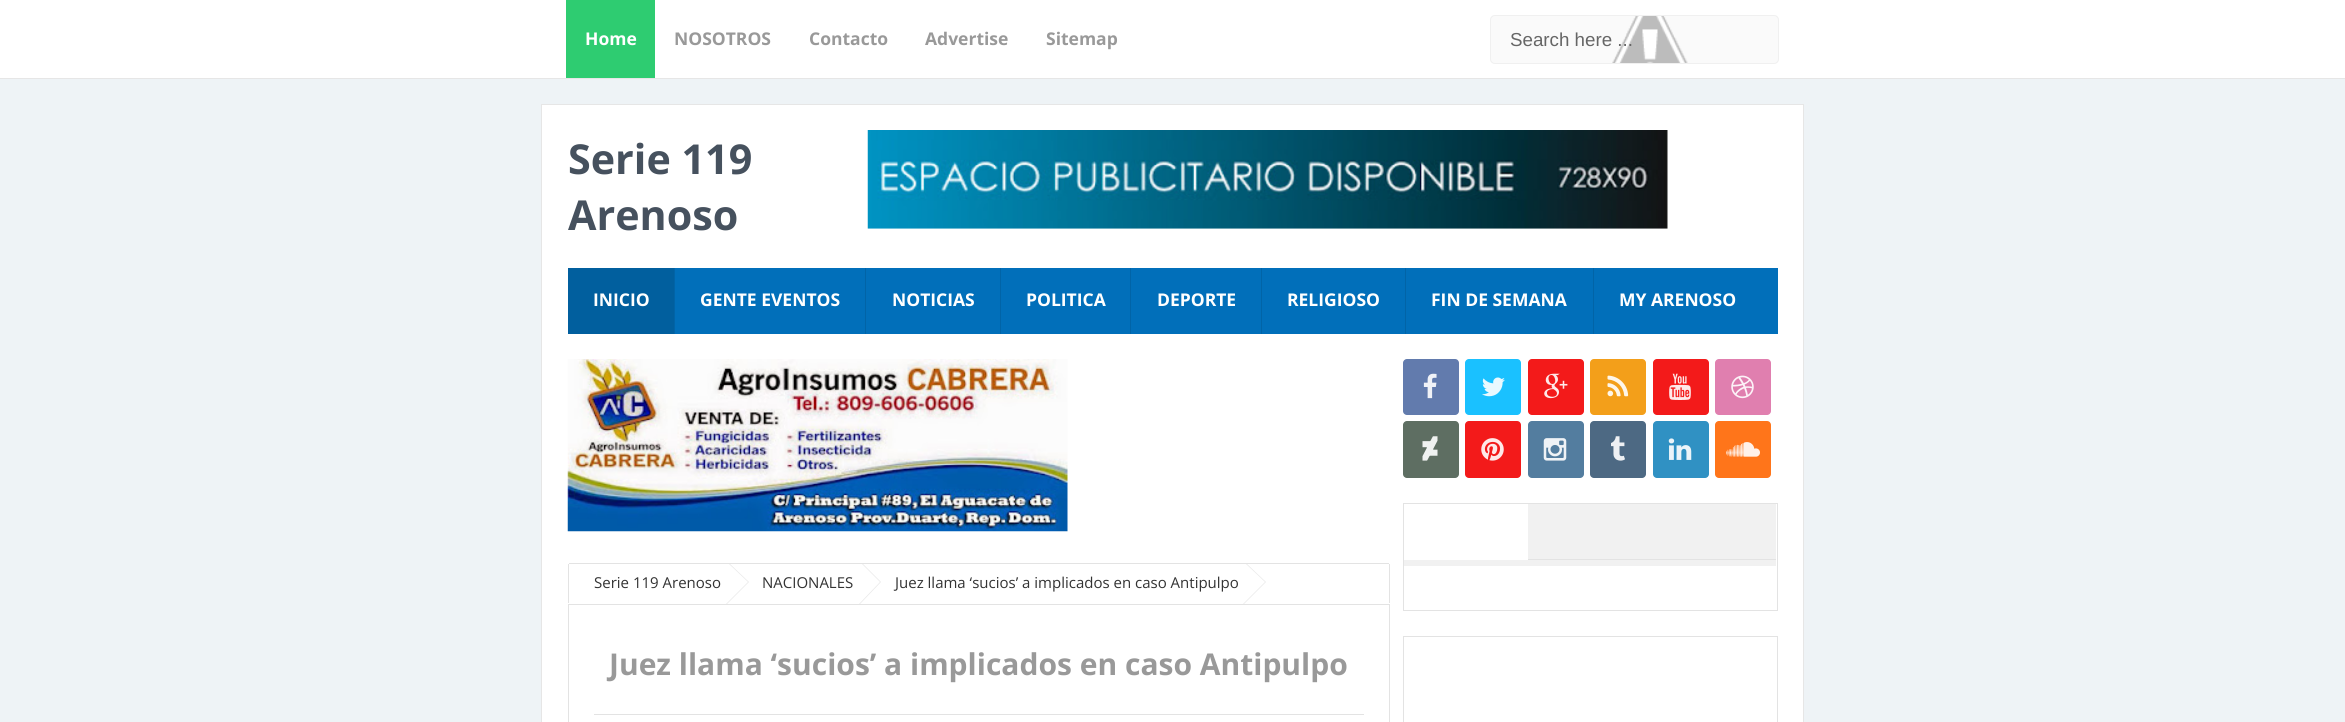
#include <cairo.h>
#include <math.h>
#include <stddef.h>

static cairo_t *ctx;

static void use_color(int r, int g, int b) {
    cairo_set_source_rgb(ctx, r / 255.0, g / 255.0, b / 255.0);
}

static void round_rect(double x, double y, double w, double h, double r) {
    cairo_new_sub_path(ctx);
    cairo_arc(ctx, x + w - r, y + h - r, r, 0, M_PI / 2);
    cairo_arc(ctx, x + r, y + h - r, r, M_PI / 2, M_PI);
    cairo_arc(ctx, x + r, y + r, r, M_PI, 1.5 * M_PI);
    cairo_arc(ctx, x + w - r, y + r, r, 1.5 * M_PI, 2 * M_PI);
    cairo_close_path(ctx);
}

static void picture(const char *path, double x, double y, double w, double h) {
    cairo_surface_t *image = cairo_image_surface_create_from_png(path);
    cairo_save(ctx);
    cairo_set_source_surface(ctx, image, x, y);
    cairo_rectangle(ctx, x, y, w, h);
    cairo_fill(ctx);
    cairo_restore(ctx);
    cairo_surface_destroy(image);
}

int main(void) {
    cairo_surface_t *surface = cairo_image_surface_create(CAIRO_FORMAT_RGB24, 2345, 722);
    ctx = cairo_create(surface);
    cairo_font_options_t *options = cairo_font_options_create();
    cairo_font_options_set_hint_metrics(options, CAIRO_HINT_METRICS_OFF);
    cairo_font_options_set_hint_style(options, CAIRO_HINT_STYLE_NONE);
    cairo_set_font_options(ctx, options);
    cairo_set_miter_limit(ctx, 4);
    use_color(238, 243, 246);
    cairo_paint(ctx);
    use_color(255, 255, 255);
    cairo_rectangle(ctx, 0, 0, 2345, 78);
    cairo_fill(ctx);
    use_color(230, 230, 230);
    cairo_rectangle(ctx, 0, 78, 2345, 1);
    cairo_fill(ctx);
    use_color(46, 204, 113);
    cairo_rectangle(ctx, 566, 0, 89, 78);
    cairo_fill(ctx);
    cairo_select_font_face(ctx, "Open Sans", CAIRO_FONT_SLANT_NORMAL, CAIRO_FONT_WEIGHT_BOLD);
    cairo_set_font_size(ctx, 17.5);
    use_color(255, 255, 255);
    cairo_move_to(ctx, 585, 45);
    cairo_show_text(ctx, "Home");
    use_color(153, 153, 153);
    cairo_move_to(ctx, 674, 45);
    cairo_show_text(ctx, "NOSOTROS");
    cairo_move_to(ctx, 809, 45);
    cairo_show_text(ctx, "Contacto");
    cairo_move_to(ctx, 925, 45);
    cairo_show_text(ctx, "Advertise");
    cairo_move_to(ctx, 1046, 45);
    cairo_show_text(ctx, "Sitemap");
    use_color(250, 250, 250);
    round_rect(1490, 15, 289, 49, 5);
    cairo_fill(ctx);
    picture("img1.png", 1612, 16, 76, 47);
    round_rect(1490.5, 15.5, 288, 48, 4.5);
    use_color(240, 240, 240);
    cairo_set_line_width(ctx, 1);
    cairo_stroke(ctx);
    cairo_select_font_face(ctx, "Liberation Sans", CAIRO_FONT_SLANT_NORMAL, CAIRO_FONT_WEIGHT_NORMAL);
    cairo_set_font_size(ctx, 18.75);
    use_color(102, 102, 102);
    cairo_move_to(ctx, 1510, 46);
    cairo_show_text(ctx, "Search here ...");
    use_color(255, 255, 255);
    cairo_rectangle(ctx, 541.5, 104.5, 1262, 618);
    cairo_fill_preserve(ctx);
    use_color(230, 230, 230);
    cairo_stroke(ctx);
    cairo_select_font_face(ctx, "Open Sans", CAIRO_FONT_SLANT_NORMAL, CAIRO_FONT_WEIGHT_BOLD);
    cairo_set_font_size(ctx, 41.25);
    use_color(70, 81, 94);
    cairo_move_to(ctx, 568, 174);
    cairo_show_text(ctx, "Serie 119");
    cairo_move_to(ctx, 568, 230);
    cairo_show_text(ctx, "Arenoso");
    picture("img2.png", 867, 130, 801, 99);
    use_color(1, 111, 186);
    cairo_rectangle(ctx, 675, 268, 1103, 66);
    cairo_fill(ctx);
    use_color(1, 100, 167);
    cairo_rectangle(ctx, 674, 268, 1, 66);
    cairo_fill(ctx);
    use_color(1, 95, 158);
    cairo_rectangle(ctx, 568, 268, 106, 66);
    cairo_fill(ctx);
    cairo_set_font_size(ctx, 17.5);
    use_color(255, 255, 255);
    cairo_move_to(ctx, 593, 306);
    cairo_show_text(ctx, "INICIO");
    use_color(1, 100, 167);
    cairo_rectangle(ctx, 865, 268, 1, 66);
    cairo_fill(ctx);
    use_color(255, 255, 255);
    cairo_move_to(ctx, 700, 306);
    cairo_show_text(ctx, "GENTE EVENTOS");
    use_color(1, 100, 167);
    cairo_rectangle(ctx, 1000, 268, 1, 66);
    cairo_fill(ctx);
    use_color(255, 255, 255);
    cairo_move_to(ctx, 892, 306);
    cairo_show_text(ctx, "NOTICIAS");
    use_color(1, 100, 167);
    cairo_rectangle(ctx, 1130, 268, 1, 66);
    cairo_fill(ctx);
    use_color(255, 255, 255);
    cairo_move_to(ctx, 1026, 306);
    cairo_show_text(ctx, "POLITICA");
    use_color(1, 100, 167);
    cairo_rectangle(ctx, 1261, 268, 1, 66);
    cairo_fill(ctx);
    use_color(255, 255, 255);
    cairo_move_to(ctx, 1157, 306);
    cairo_show_text(ctx, "DEPORTE");
    use_color(1, 100, 167);
    cairo_rectangle(ctx, 1405, 268, 1, 66);
    cairo_fill(ctx);
    use_color(255, 255, 255);
    cairo_move_to(ctx, 1287, 306);
    cairo_show_text(ctx, "RELIGIOSO");
    use_color(1, 100, 167);
    cairo_rectangle(ctx, 1593, 268, 1, 66);
    cairo_fill(ctx);
    use_color(255, 255, 255);
    cairo_move_to(ctx, 1431, 306);
    cairo_show_text(ctx, "FIN DE SEMANA");
    cairo_move_to(ctx, 1619, 306);
    cairo_show_text(ctx, "MY ARENOSO");
    picture("img3.png", 567, 359, 501, 173);
    use_color(227, 227, 227);
    cairo_rectangle(ctx, 569, 563, 820, 1);
    cairo_fill(ctx);
    cairo_rectangle(ctx, 1389, 564, 1, 39);
    cairo_fill(ctx);
    cairo_rectangle(ctx, 568, 564, 1, 39);
    cairo_fill(ctx);
    use_color(233, 233, 233);
    cairo_new_path(ctx);
    cairo_move_to(ctx, 730, 564);
    cairo_line_to(ctx, 749, 582);
    cairo_line_to(ctx, 727, 604);
    cairo_line_to(ctx, 725, 604);
    cairo_line_to(ctx, 725, 564);
    cairo_close_path(ctx);
    cairo_fill(ctx);
    cairo_select_font_face(ctx, "Open Sans", CAIRO_FONT_SLANT_NORMAL, CAIRO_FONT_WEIGHT_NORMAL);
    cairo_set_font_size(ctx, 15);
    use_color(51, 51, 51);
    cairo_move_to(ctx, 594, 588);
    cairo_show_text(ctx, "Serie 119 Arenoso");
    use_color(255, 255, 255);
    cairo_new_path(ctx);
    cairo_move_to(ctx, 729, 564);
    cairo_line_to(ctx, 748, 582);
    cairo_line_to(ctx, 726, 604);
    cairo_line_to(ctx, 725, 604);
    cairo_line_to(ctx, 725, 564);
    cairo_close_path(ctx);
    cairo_fill(ctx);
    use_color(233, 233, 233);
    cairo_new_path(ctx);
    cairo_move_to(ctx, 863, 564);
    cairo_line_to(ctx, 881, 582);
    cairo_line_to(ctx, 860, 604);
    cairo_line_to(ctx, 858, 604);
    cairo_line_to(ctx, 858, 564);
    cairo_close_path(ctx);
    cairo_fill(ctx);
    use_color(51, 51, 51);
    cairo_move_to(ctx, 762, 588);
    cairo_show_text(ctx, "NACIONALES");
    use_color(255, 255, 255);
    cairo_new_path(ctx);
    cairo_move_to(ctx, 862, 564);
    cairo_line_to(ctx, 880, 582);
    cairo_line_to(ctx, 859, 604);
    cairo_line_to(ctx, 858, 604);
    cairo_line_to(ctx, 858, 564);
    cairo_close_path(ctx);
    cairo_fill(ctx);
    use_color(233, 233, 233);
    cairo_new_path(ctx);
    cairo_move_to(ctx, 1247, 564);
    cairo_line_to(ctx, 1266, 582);
    cairo_line_to(ctx, 1244, 604);
    cairo_line_to(ctx, 1242, 604);
    cairo_line_to(ctx, 1242, 564);
    cairo_close_path(ctx);
    cairo_fill(ctx);
    use_color(51, 51, 51);
    cairo_move_to(ctx, 895, 588);
    cairo_show_text(ctx, "Juez llama ‘sucios’ a implicados en caso Antipulpo");
    use_color(255, 255, 255);
    cairo_new_path(ctx);
    cairo_move_to(ctx, 1246, 564);
    cairo_line_to(ctx, 1265, 582);
    cairo_line_to(ctx, 1243, 604);
    cairo_line_to(ctx, 1242, 604);
    cairo_line_to(ctx, 1242, 564);
    cairo_close_path(ctx);
    cairo_fill(ctx);
    cairo_rectangle(ctx, 568.5, 604.5, 821, 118);
    use_color(227, 227, 227);
    cairo_stroke(ctx);
    cairo_select_font_face(ctx, "Open Sans", CAIRO_FONT_SLANT_NORMAL, CAIRO_FONT_WEIGHT_BOLD);
    cairo_set_font_size(ctx, 30);
    use_color(153, 153, 153);
    cairo_move_to(ctx, 609, 675);
    cairo_show_text(ctx, "Juez llama ‘sucios’ a implicados en caso Antipulpo");
    use_color(227, 227, 227);
    cairo_rectangle(ctx, 594, 714, 770, 1);
    cairo_fill(ctx);
    use_color(98, 123, 173);
    round_rect(1403, 359, 56, 56, 4);
    cairo_fill(ctx);
    picture("img4.png", 1423, 373, 14, 26);
    use_color(26, 193, 255);
    round_rect(1465, 359, 56, 56, 4);
    cairo_fill(ctx);
    picture("img5.png", 1482, 377, 23, 20);
    use_color(243, 26, 26);
    round_rect(1528, 359, 56, 56, 4);
    cairo_fill(ctx);
    picture("img6.png", 1544, 373, 24, 26);
    use_color(243, 159, 26);
    round_rect(1590, 359, 56, 56, 4);
    cairo_fill(ctx);
    picture("img7.png", 1607, 375, 22, 22);
    use_color(243, 26, 26);
    round_rect(1653, 359, 56, 56, 4);
    cairo_fill(ctx);
    picture("img8.png", 1669, 373, 22, 27);
    use_color(224, 127, 175);
    round_rect(1715, 359, 56, 56, 4);
    cairo_fill(ctx);
    picture("img9.png", 1731, 375, 23, 24);
    use_color(94, 110, 98);
    round_rect(1403, 421, 56, 57, 4);
    cairo_fill(ctx);
    picture("img10.png", 1422, 436, 16, 25);
    use_color(243, 26, 26);
    round_rect(1465, 421, 56, 57, 4);
    cairo_fill(ctx);
    picture("img11.png", 1481, 438, 23, 23);
    use_color(83, 125, 159);
    round_rect(1528, 421, 56, 57, 4);
    cairo_fill(ctx);
    picture("img12.png", 1543, 438, 24, 23);
    use_color(77, 105, 131);
    round_rect(1590, 421, 56, 57, 4);
    cairo_fill(ctx);
    picture("img13.png", 1611, 436, 14, 25);
    use_color(48, 145, 195);
    round_rect(1653, 421, 56, 57, 4);
    cairo_fill(ctx);
    picture("img14.png", 1668, 438, 24, 22);
    use_color(255, 117, 26);
    round_rect(1715, 421, 56, 57, 4);
    cairo_fill(ctx);
    picture("img15.png", 1726, 442, 34, 15);
    cairo_rectangle(ctx, 1403.5, 503.5, 374, 107);
    use_color(227, 227, 227);
    cairo_stroke(ctx);
    use_color(241, 241, 241);
    cairo_rectangle(ctx, 1404, 504, 372, 62);
    cairo_fill(ctx);
    use_color(255, 255, 255);
    cairo_rectangle(ctx, 1404, 504, 124, 56);
    cairo_fill(ctx);
    use_color(227, 227, 227);
    cairo_rectangle(ctx, 1528, 559, 248, 1);
    cairo_fill(ctx);
    cairo_rectangle(ctx, 1403.5, 636.5, 374, 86);
    cairo_stroke(ctx);
    cairo_surface_write_to_png(surface, "result.png");
    cairo_font_options_destroy(options);
    cairo_destroy(ctx);
    cairo_surface_destroy(surface);
    return 0;
}
